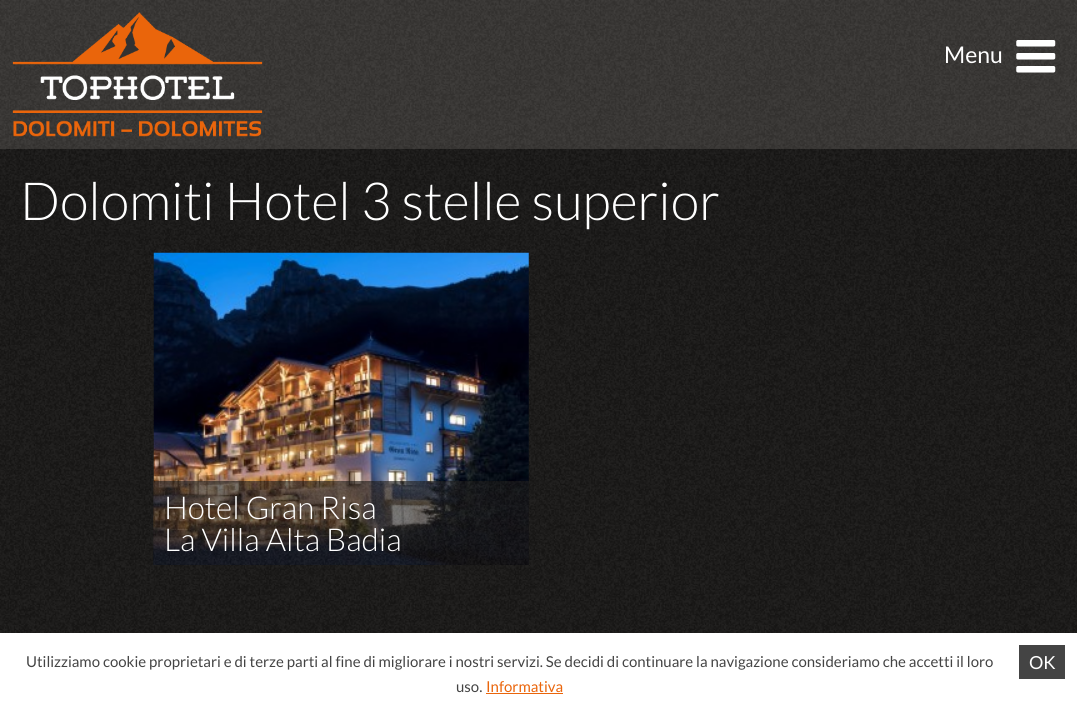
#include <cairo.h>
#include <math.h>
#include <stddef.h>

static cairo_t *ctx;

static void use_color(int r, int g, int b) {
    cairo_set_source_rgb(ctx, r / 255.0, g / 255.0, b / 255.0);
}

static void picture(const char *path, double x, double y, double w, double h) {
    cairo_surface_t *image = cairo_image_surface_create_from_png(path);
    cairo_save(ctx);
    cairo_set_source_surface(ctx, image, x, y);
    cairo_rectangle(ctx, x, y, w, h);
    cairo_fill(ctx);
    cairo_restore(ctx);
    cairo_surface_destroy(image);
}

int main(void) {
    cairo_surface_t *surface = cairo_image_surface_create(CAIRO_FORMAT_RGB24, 1077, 716);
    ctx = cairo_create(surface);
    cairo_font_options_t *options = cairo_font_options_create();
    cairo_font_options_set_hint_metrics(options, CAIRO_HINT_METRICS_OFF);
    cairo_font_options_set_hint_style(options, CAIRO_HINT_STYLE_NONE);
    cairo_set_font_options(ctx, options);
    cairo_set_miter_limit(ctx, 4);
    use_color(22, 21, 20);
    cairo_paint(ctx);
    picture("img1.png", 0, 149, 1077, 484);
    use_color(52, 50, 48);
    cairo_rectangle(ctx, 0, 0, 1077, 149);
    cairo_fill(ctx);
    picture("img2.png", 0, 0, 1077, 149);
    picture("img3.png", 12, 12, 251, 125);
    cairo_select_font_face(ctx, "Lato", CAIRO_FONT_SLANT_NORMAL, CAIRO_FONT_WEIGHT_NORMAL);
    cairo_set_font_size(ctx, 23);
    use_color(255, 255, 255);
    cairo_move_to(ctx, 944, 63);
    cairo_show_text(ctx, "Menu");
    picture("img4.png", 1016, 40, 40, 33);
    cairo_select_font_face(ctx, "Lato Light", CAIRO_FONT_SLANT_NORMAL, CAIRO_FONT_WEIGHT_NORMAL);
    cairo_set_font_size(ctx, 52.5);
    cairo_move_to(ctx, 20, 220);
    cairo_show_text(ctx, "Dolomiti Hotel 3 stelle superior");
    picture("img5.png", 153, 252, 376, 313);
    cairo_set_source_rgba(ctx, 0.086, 0.082, 0.078, 0.6);
    cairo_rectangle(ctx, 154, 481, 375, 84);
    cairo_fill(ctx);
    picture("img6.png", 154, 481, 375, 84);
    cairo_set_font_size(ctx, 31.5);
    use_color(255, 255, 255);
    cairo_move_to(ctx, 164, 519);
    cairo_show_text(ctx, "Hotel Gran Risa");
    cairo_move_to(ctx, 164, 551);
    cairo_show_text(ctx, "La Villa Alta Badia");
    cairo_rectangle(ctx, 0, 633, 1077, 83);
    cairo_fill(ctx);
    cairo_select_font_face(ctx, "Lato", CAIRO_FONT_SLANT_NORMAL, CAIRO_FONT_WEIGHT_NORMAL);
    cairo_set_font_size(ctx, 15);
    use_color(68, 68, 68);
    cairo_move_to(ctx, 26, 667);
    cairo_show_text(ctx, "Utilizziamo cookie proprietari e di terze parti al fine di migliorare i nostri servizi. Se decidi di continuare la navigazione consideriamo che accetti il loro");
    cairo_move_to(ctx, 456, 692);
    cairo_show_text(ctx, "uso.");
    use_color(234, 101, 11);
    cairo_move_to(ctx, 486, 692);
    cairo_show_text(ctx, "Informativa");
    cairo_rectangle(ctx, 486, 693, 77, 1);
    cairo_fill(ctx);
    use_color(68, 68, 68);
    cairo_rectangle(ctx, 1019, 645, 46, 34);
    cairo_fill(ctx);
    cairo_set_font_size(ctx, 18);
    use_color(255, 255, 255);
    cairo_move_to(ctx, 1029, 669);
    cairo_show_text(ctx, "OK");
    cairo_surface_write_to_png(surface, "result.png");
    cairo_font_options_destroy(options);
    cairo_destroy(ctx);
    cairo_surface_destroy(surface);
    return 0;
}
